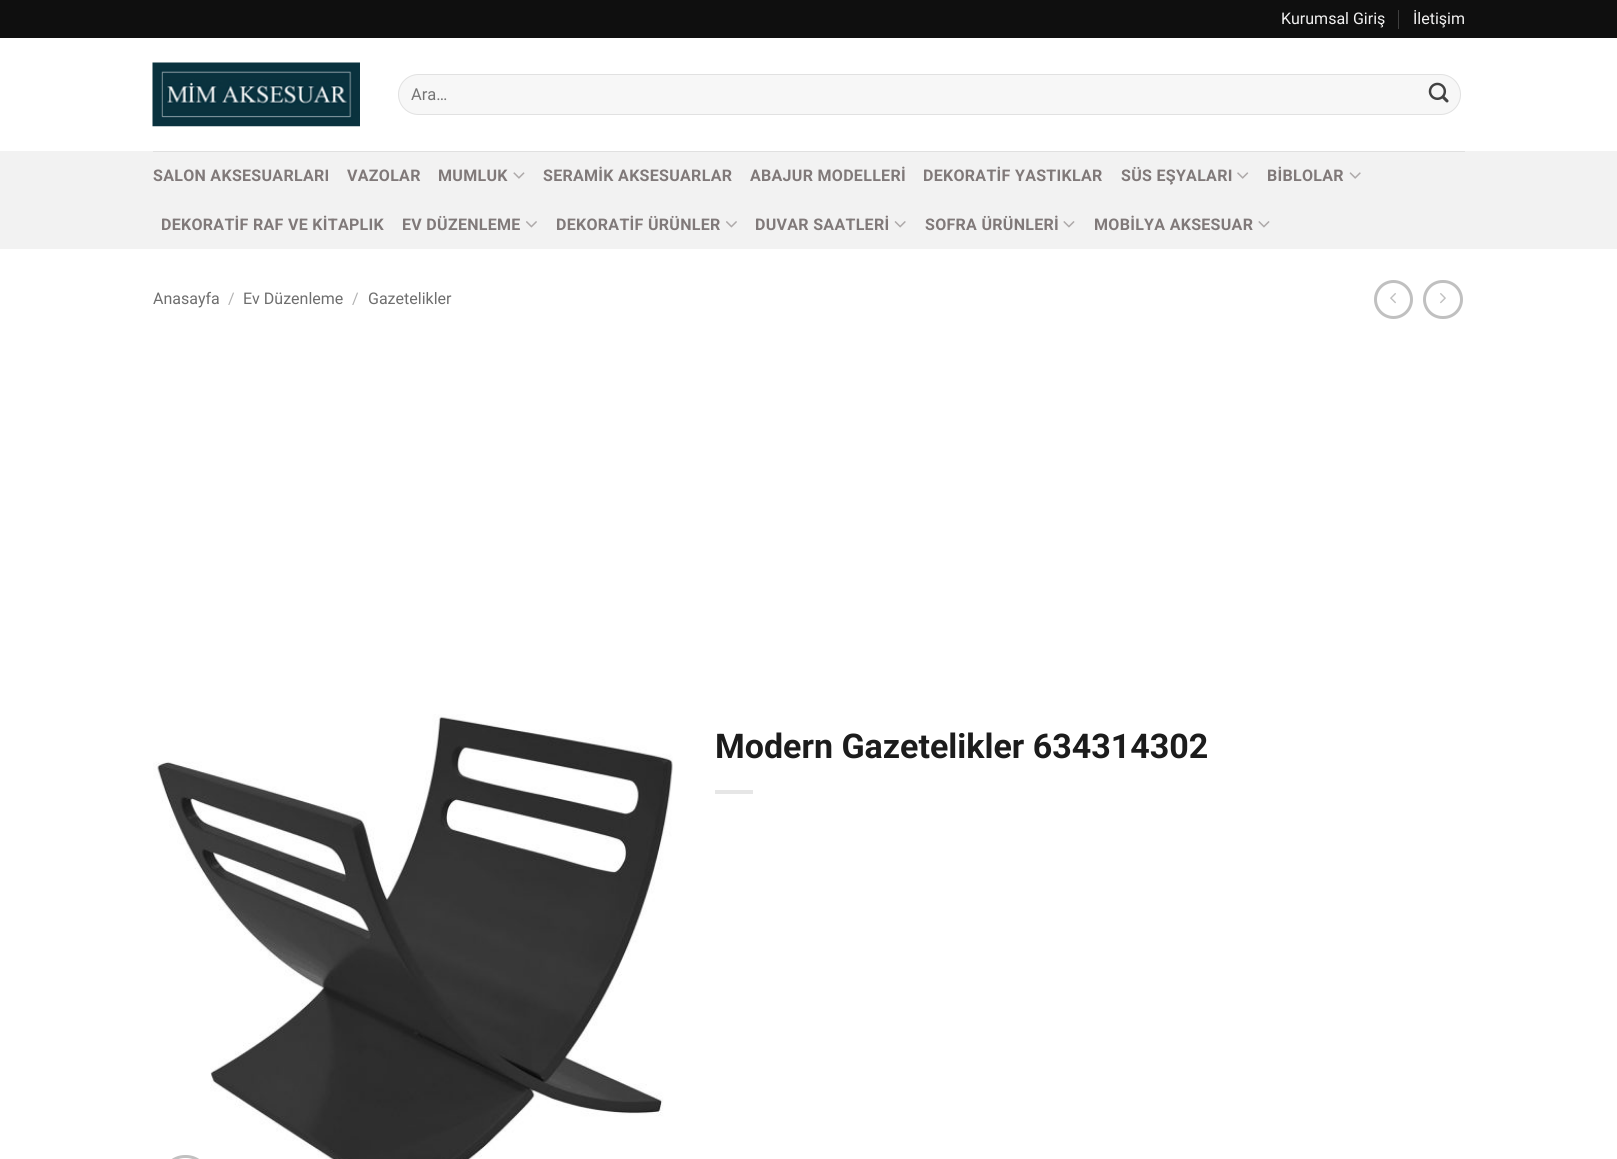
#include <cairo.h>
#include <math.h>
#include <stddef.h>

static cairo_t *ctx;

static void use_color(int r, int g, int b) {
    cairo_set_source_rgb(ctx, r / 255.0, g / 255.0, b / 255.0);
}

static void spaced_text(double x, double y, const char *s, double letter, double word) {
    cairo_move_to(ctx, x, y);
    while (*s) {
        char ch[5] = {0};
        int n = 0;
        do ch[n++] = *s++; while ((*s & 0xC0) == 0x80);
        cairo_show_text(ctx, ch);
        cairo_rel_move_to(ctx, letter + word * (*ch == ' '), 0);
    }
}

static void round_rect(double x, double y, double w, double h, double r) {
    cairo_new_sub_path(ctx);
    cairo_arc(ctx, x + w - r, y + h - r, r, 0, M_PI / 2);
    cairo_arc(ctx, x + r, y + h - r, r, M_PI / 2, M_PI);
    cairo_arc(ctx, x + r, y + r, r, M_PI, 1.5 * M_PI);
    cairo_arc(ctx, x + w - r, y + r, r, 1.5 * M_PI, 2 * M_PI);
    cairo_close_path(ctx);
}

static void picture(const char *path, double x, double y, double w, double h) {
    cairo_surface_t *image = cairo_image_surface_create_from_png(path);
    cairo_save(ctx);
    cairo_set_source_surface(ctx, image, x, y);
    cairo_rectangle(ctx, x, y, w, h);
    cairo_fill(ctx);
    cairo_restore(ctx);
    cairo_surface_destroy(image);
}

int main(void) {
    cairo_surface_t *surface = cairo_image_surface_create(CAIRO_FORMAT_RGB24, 1617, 1159);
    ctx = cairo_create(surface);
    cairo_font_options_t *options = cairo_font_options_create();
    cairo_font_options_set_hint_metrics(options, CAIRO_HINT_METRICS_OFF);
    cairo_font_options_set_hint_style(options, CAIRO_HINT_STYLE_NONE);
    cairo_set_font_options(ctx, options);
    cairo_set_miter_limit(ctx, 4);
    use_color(255, 255, 255);
    cairo_paint(ctx);
    use_color(15, 15, 15);
    cairo_rectangle(ctx, 0, 0, 1617, 38);
    cairo_fill(ctx);
    cairo_select_font_face(ctx, "Roboto", CAIRO_FONT_SLANT_NORMAL, CAIRO_FONT_WEIGHT_NORMAL);
    cairo_set_font_size(ctx, 16);
    use_color(242, 241, 241);
    cairo_move_to(ctx, 1281, 24);
    cairo_show_text(ctx, "Kurumsal Giriş");
    use_color(63, 63, 63);
    cairo_rectangle(ctx, 1398, 10, 1, 19);
    cairo_fill(ctx);
    use_color(242, 241, 241);
    cairo_move_to(ctx, 1413, 24);
    cairo_show_text(ctx, "İletişim");
    picture("img1.png", 152, 62, 208, 65);
    use_color(247, 247, 247);
    round_rect(398, 74, 1063, 41, 20.5);
    cairo_fill(ctx);
    round_rect(398.5, 74.5, 1062, 40, 20);
    cairo_set_source_rgba(ctx, 0, 0, 0, 0.09);
    cairo_set_line_width(ctx, 1);
    cairo_stroke(ctx);
    cairo_set_font_size(ctx, 16.5);
    use_color(117, 117, 117);
    cairo_move_to(ctx, 411, 100);
    cairo_show_text(ctx, "Ara…");
    picture("img2.png", 1428, 82, 21, 21);
    use_color(242, 242, 242);
    cairo_rectangle(ctx, 0, 151, 1617, 98);
    cairo_fill(ctx);
    use_color(224, 224, 224);
    cairo_rectangle(ctx, 153, 151, 1312, 1);
    cairo_fill(ctx);
    cairo_select_font_face(ctx, "Roboto", CAIRO_FONT_SLANT_NORMAL, CAIRO_FONT_WEIGHT_BOLD);
    cairo_set_font_size(ctx, 16);
    use_color(128, 121, 121);
    spaced_text(153, 181, "SALON AKSESUARLARI", 0.3, 0);
    spaced_text(347, 181, "VAZOLAR", 0.3, 0);
    spaced_text(438, 181, "MUMLUK", 0.3, 0);
    picture("img3.png", 513, 172, 12, 7);
    spaced_text(543, 181, "SERAMİK AKSESUARLAR", 0.3, 0);
    spaced_text(750, 181, "ABAJUR MODELLERİ", 0.3, 0);
    spaced_text(923, 181, "DEKORATİF YASTIKLAR", 0.3, 0);
    spaced_text(1121, 181, "SÜS EŞYALARI", 0.3, 0);
    picture("img4.png", 1237, 172, 12, 7);
    spaced_text(1267, 181, "BİBLOLAR", 0.3, 0);
    picture("img5.png", 1349, 172, 12, 7);
    spaced_text(161, 230, "DEKORATİF RAF VE KİTAPLIK", 0.3, 0);
    spaced_text(402, 230, "EV DÜZENLEME", 0.3, 0);
    picture("img6.png", 526, 221, 11, 7);
    spaced_text(556, 230, "DEKORATİF ÜRÜNLER", 0.3, 0);
    picture("img6.png", 726, 221, 11, 7);
    spaced_text(755, 230, "DUVAR SAATLERİ", 0.3, 0);
    picture("img7.png", 894, 221, 12, 7);
    spaced_text(925, 230, "SOFRA ÜRÜNLERİ", 0.3, 0);
    picture("img8.png", 1063, 221, 12, 7);
    spaced_text(1094, 230, "MOBİLYA AKSESUAR", 0.3, 0);
    picture("img8.png", 1258, 221, 12, 7);
    cairo_select_font_face(ctx, "Roboto", CAIRO_FONT_SLANT_NORMAL, CAIRO_FONT_WEIGHT_NORMAL);
    use_color(110, 110, 110);
    cairo_move_to(ctx, 153, 304);
    cairo_show_text(ctx, "Anasayfa");
    use_color(178, 178, 178);
    cairo_move_to(ctx, 228, 304);
    cairo_show_text(ctx, "/");
    use_color(110, 110, 110);
    cairo_move_to(ctx, 243, 304);
    cairo_show_text(ctx, "Ev Düzenleme");
    use_color(178, 178, 178);
    cairo_move_to(ctx, 352, 304);
    cairo_show_text(ctx, "/");
    use_color(110, 110, 110);
    cairo_move_to(ctx, 368, 304);
    cairo_show_text(ctx, "Gazetelikler");
    cairo_new_path(ctx);
    cairo_arc(ctx, 1393.5, 299.5, 18, 0, 2 * M_PI);
    use_color(192, 192, 192);
    cairo_set_line_width(ctx, 3);
    cairo_stroke(ctx);
    picture("img9.png", 1390, 293, 6, 11);
    round_rect(1424.5, 281.5, 37, 36, 18);
    cairo_stroke(ctx);
    picture("img10.png", 1440, 293, 6, 11);
    picture("img11.png", 153, 714, 520, 445);
    round_rect(162.5, 1156.5, 46, 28, 22.5);
    cairo_stroke(ctx);
    cairo_select_font_face(ctx, "Roboto", CAIRO_FONT_SLANT_NORMAL, CAIRO_FONT_WEIGHT_BOLD);
    cairo_set_font_size(ctx, 34);
    use_color(28, 28, 28);
    cairo_move_to(ctx, 715, 758);
    cairo_show_text(ctx, "Modern Gazetelikler 634314302");
    use_color(230, 230, 230);
    cairo_rectangle(ctx, 715, 790, 38, 4);
    cairo_fill(ctx);
    cairo_surface_write_to_png(surface, "result.png");
    cairo_font_options_destroy(options);
    cairo_destroy(ctx);
    cairo_surface_destroy(surface);
    return 0;
}
